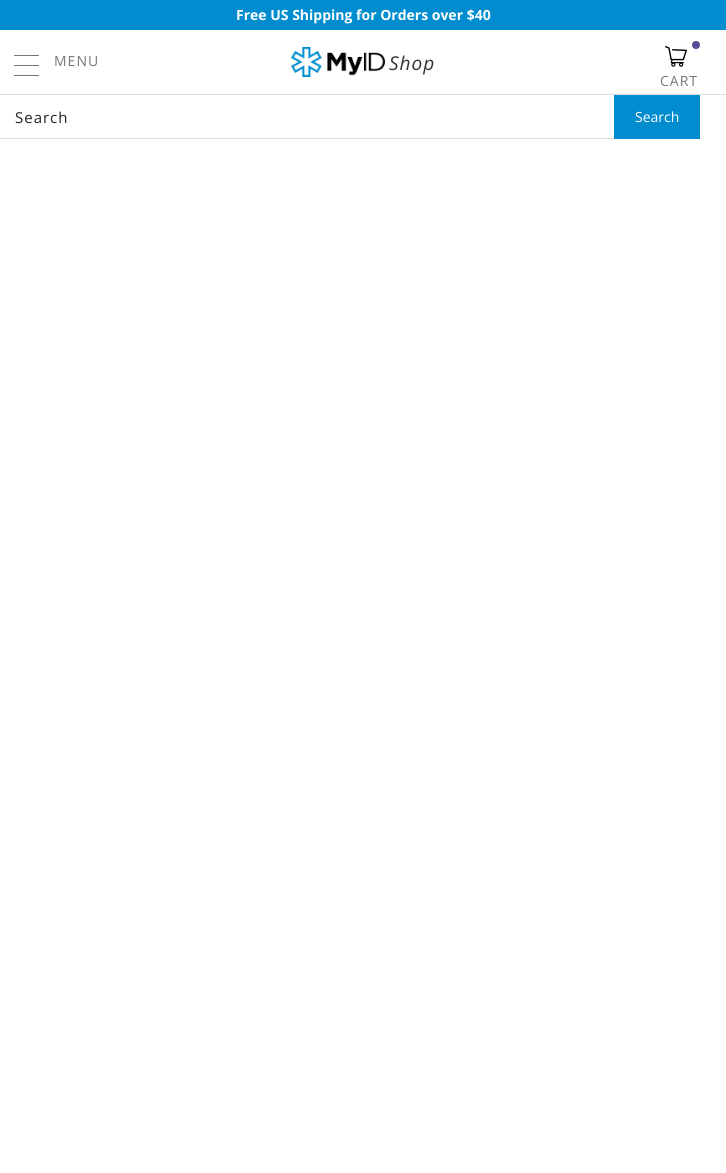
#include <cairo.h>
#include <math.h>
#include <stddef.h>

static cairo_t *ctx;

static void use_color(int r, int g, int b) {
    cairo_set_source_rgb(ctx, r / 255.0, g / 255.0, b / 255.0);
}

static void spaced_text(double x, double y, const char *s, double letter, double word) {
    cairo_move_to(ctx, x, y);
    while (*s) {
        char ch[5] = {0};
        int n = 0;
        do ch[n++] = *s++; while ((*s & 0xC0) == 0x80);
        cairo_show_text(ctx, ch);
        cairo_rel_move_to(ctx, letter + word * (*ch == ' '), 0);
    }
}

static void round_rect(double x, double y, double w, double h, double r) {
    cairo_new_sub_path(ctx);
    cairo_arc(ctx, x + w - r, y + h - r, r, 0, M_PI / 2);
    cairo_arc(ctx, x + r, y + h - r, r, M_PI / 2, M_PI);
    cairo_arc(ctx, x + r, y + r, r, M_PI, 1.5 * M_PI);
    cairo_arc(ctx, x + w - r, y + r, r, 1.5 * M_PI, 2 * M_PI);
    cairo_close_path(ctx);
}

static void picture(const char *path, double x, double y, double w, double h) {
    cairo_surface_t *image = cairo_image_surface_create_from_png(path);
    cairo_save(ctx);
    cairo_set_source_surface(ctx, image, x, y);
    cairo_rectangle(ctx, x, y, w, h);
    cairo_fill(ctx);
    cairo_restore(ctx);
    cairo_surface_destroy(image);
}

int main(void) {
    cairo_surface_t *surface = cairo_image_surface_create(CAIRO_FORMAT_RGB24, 726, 1173);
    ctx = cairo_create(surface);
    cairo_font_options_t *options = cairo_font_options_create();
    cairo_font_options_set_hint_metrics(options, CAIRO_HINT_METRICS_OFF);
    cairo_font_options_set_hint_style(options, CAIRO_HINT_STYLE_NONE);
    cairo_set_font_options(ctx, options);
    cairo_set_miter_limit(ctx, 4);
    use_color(255, 255, 255);
    cairo_paint(ctx);
    use_color(221, 221, 221);
    cairo_rectangle(ctx, 0, 94, 726, 1);
    cairo_fill(ctx);
    use_color(0, 141, 207);
    cairo_rectangle(ctx, 0, 0, 726, 30);
    cairo_fill(ctx);
    cairo_select_font_face(ctx, "Open Sans", CAIRO_FONT_SLANT_NORMAL, CAIRO_FONT_WEIGHT_BOLD);
    cairo_set_font_size(ctx, 14);
    use_color(255, 255, 255);
    cairo_move_to(ctx, 236, 20);
    cairo_show_text(ctx, "Free US Shipping for Orders over $40");
    use_color(121, 118, 118);
    round_rect(14, 55, 25, 1, 0.5);
    cairo_fill(ctx);
    round_rect(14, 65, 25, 1, 0.5);
    cairo_fill(ctx);
    round_rect(14, 75, 25, 1, 0.5);
    cairo_fill(ctx);
    cairo_select_font_face(ctx, "Open Sans", CAIRO_FONT_SLANT_NORMAL, CAIRO_FONT_WEIGHT_NORMAL);
    spaced_text(54, 66, "MENU", 1, 0);
    picture("img1.png", 291, 47, 94, 30);
    cairo_select_font_face(ctx, "Open Sans", CAIRO_FONT_SLANT_ITALIC, CAIRO_FONT_WEIGHT_NORMAL);
    cairo_set_font_size(ctx, 19);
    use_color(51, 51, 51);
    spaced_text(389, 70, "Shop", 1, 0);
    picture("img2.png", 665, 46, 22, 21);
    use_color(85, 77, 153);
    cairo_arc(ctx, 696, 45, 5, 0, 2 * M_PI);
    cairo_fill_preserve(ctx);
    use_color(255, 255, 255);
    cairo_stroke(ctx);
    cairo_select_font_face(ctx, "Open Sans", CAIRO_FONT_SLANT_NORMAL, CAIRO_FONT_WEIGHT_NORMAL);
    cairo_set_font_size(ctx, 14);
    use_color(121, 118, 118);
    spaced_text(660, 86, "CART", 1, 0);
    use_color(221, 219, 219);
    cairo_rectangle(ctx, 0, 138, 614, 1);
    cairo_fill(ctx);
    cairo_set_font_size(ctx, 15);
    use_color(34, 34, 34);
    spaced_text(15, 123, "Search", 1, 0);
    use_color(0, 141, 207);
    cairo_rectangle(ctx, 614, 95, 86, 44);
    cairo_fill(ctx);
    cairo_set_font_size(ctx, 14);
    use_color(255, 255, 255);
    cairo_move_to(ctx, 635, 122);
    cairo_show_text(ctx, "Search");
    cairo_surface_write_to_png(surface, "result.png");
    cairo_font_options_destroy(options);
    cairo_destroy(ctx);
    cairo_surface_destroy(surface);
    return 0;
}
